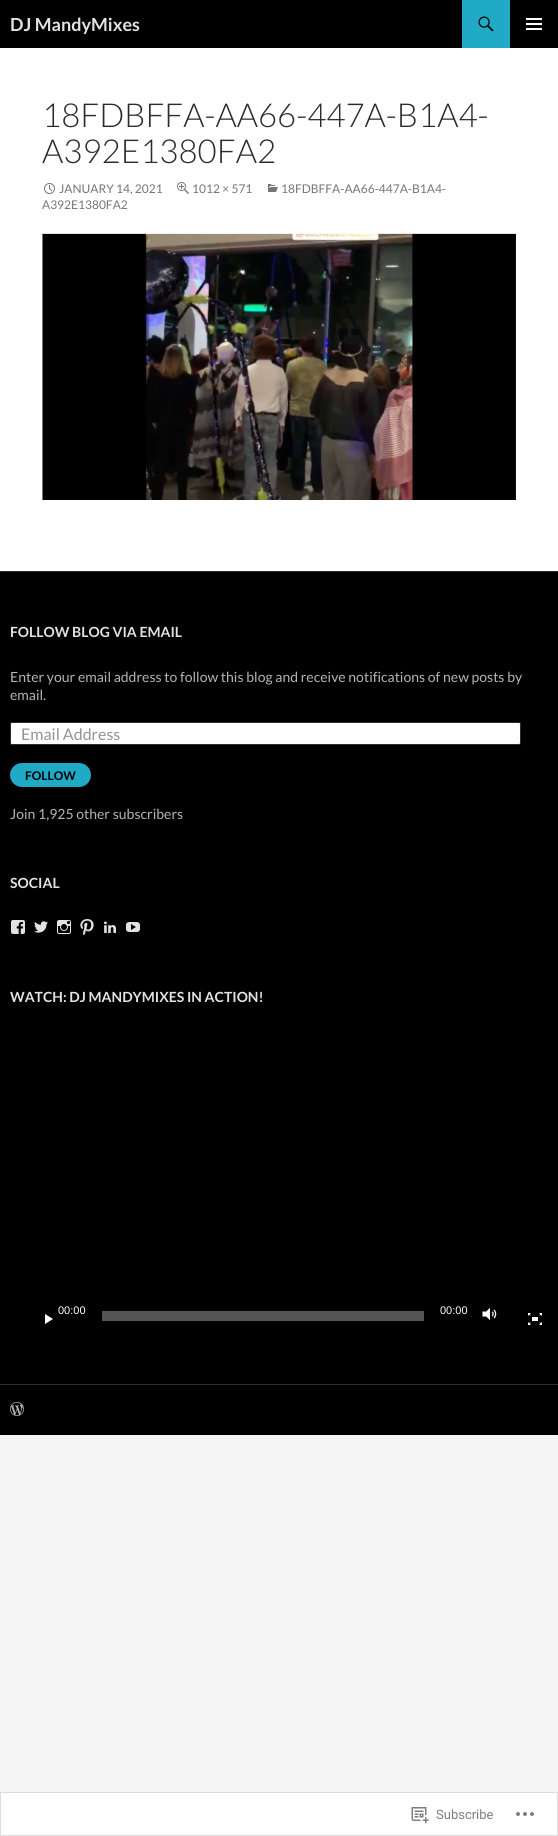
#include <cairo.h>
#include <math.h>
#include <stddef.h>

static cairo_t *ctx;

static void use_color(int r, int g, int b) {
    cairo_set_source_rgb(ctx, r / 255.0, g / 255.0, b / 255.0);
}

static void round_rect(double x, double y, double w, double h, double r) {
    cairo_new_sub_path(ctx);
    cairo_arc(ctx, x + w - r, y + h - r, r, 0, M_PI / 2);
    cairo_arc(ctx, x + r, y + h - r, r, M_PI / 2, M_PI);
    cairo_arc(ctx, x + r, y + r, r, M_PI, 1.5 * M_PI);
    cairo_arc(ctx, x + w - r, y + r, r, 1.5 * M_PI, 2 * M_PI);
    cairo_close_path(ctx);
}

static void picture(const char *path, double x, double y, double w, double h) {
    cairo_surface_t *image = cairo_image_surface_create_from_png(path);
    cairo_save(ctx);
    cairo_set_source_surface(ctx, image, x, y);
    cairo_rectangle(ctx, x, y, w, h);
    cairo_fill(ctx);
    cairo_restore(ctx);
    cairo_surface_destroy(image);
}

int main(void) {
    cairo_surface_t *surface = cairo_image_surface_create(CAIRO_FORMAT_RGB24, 558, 1836);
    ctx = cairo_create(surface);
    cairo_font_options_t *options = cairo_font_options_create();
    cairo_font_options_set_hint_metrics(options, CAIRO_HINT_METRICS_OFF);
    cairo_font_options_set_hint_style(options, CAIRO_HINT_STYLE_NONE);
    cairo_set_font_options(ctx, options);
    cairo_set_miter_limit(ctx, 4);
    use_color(245, 245, 245);
    cairo_paint(ctx);
    use_color(255, 255, 255);
    cairo_rectangle(ctx, 0, 48, 558, 523);
    cairo_fill(ctx);
    use_color(0, 0, 0);
    cairo_rectangle(ctx, 0, 0, 558, 48);
    cairo_fill(ctx);
    cairo_select_font_face(ctx, "Lato", CAIRO_FONT_SLANT_NORMAL, CAIRO_FONT_WEIGHT_BOLD);
    cairo_set_font_size(ctx, 18);
    use_color(226, 226, 226);
    cairo_move_to(ctx, 10, 31);
    cairo_show_text(ctx, "DJ MandyMixes");
    use_color(32, 170, 198);
    cairo_rectangle(ctx, 462, 0, 48, 48);
    cairo_fill(ctx);
    picture("img1.png", 478, 16, 16, 16);
    picture("img2.png", 526, 18, 16, 12);
    cairo_select_font_face(ctx, "Lato Light", CAIRO_FONT_SLANT_NORMAL, CAIRO_FONT_WEIGHT_NORMAL);
    cairo_set_font_size(ctx, 33);
    use_color(43, 43, 43);
    cairo_move_to(ctx, 42, 127);
    cairo_show_text(ctx, "18FDBFFA-AA66-447A-B1A4-");
    cairo_move_to(ctx, 42, 163);
    cairo_show_text(ctx, "A392E1380FA2");
    picture("img3.png", 268, 184, 10, 8);
    cairo_select_font_face(ctx, "Lato", CAIRO_FONT_SLANT_NORMAL, CAIRO_FONT_WEIGHT_NORMAL);
    cairo_set_font_size(ctx, 12);
    use_color(118, 118, 118);
    cairo_move_to(ctx, 281, 193);
    cairo_show_text(ctx, "18FDBFFA-AA66-447A-B1A4-");
    cairo_move_to(ctx, 42, 209);
    cairo_show_text(ctx, "A392E1380FA2");
    picture("img4.png", 44, 183, 11, 11);
    cairo_move_to(ctx, 59, 193);
    cairo_show_text(ctx, "JANUARY 14, 2021");
    picture("img5.png", 177, 182, 12, 12);
    cairo_move_to(ctx, 192, 193);
    cairo_show_text(ctx, "1012 × 571");
    picture("img6.png", 42, 233, 474, 267);
    use_color(0, 0, 0);
    cairo_rectangle(ctx, 0, 572, 558, 812);
    cairo_fill(ctx);
    use_color(45, 45, 45);
    cairo_rectangle(ctx, 0, 571, 558, 1);
    cairo_fill(ctx);
    cairo_rectangle(ctx, 0, 1384, 558, 1);
    cairo_fill(ctx);
    cairo_select_font_face(ctx, "Lato", CAIRO_FONT_SLANT_NORMAL, CAIRO_FONT_WEIGHT_BOLD);
    cairo_set_font_size(ctx, 14);
    use_color(226, 226, 226);
    cairo_move_to(ctx, 10, 637);
    cairo_show_text(ctx, "FOLLOW BLOG VIA EMAIL");
    cairo_select_font_face(ctx, "Lato", CAIRO_FONT_SLANT_NORMAL, CAIRO_FONT_WEIGHT_NORMAL);
    use_color(181, 181, 181);
    cairo_move_to(ctx, 10, 682);
    cairo_show_text(ctx, "Enter your email address to follow this blog and receive notifications of new posts by");
    cairo_move_to(ctx, 10, 700);
    cairo_show_text(ctx, "email.");
    use_color(255, 255, 255);
    round_rect(10.5, 722.5, 510, 22, 1.5);
    cairo_fill_preserve(ctx);
    use_color(45, 45, 45);
    cairo_set_line_width(ctx, 1);
    cairo_stroke(ctx);
    cairo_set_font_size(ctx, 16);
    use_color(147, 147, 147);
    cairo_move_to(ctx, 21, 740);
    cairo_show_text(ctx, "Email Address");
    use_color(32, 170, 198);
    round_rect(10, 763, 81, 24, 12);
    cairo_fill(ctx);
    cairo_select_font_face(ctx, "Lato", CAIRO_FONT_SLANT_NORMAL, CAIRO_FONT_WEIGHT_BOLD);
    cairo_set_font_size(ctx, 12);
    use_color(0, 0, 0);
    cairo_move_to(ctx, 25, 780);
    cairo_show_text(ctx, "FOLLOW");
    cairo_select_font_face(ctx, "Lato", CAIRO_FONT_SLANT_NORMAL, CAIRO_FONT_WEIGHT_NORMAL);
    cairo_set_font_size(ctx, 14);
    use_color(181, 181, 181);
    cairo_move_to(ctx, 10, 819);
    cairo_show_text(ctx, "Join 1,925 other subscribers");
    cairo_select_font_face(ctx, "Lato", CAIRO_FONT_SLANT_NORMAL, CAIRO_FONT_WEIGHT_BOLD);
    use_color(226, 226, 226);
    cairo_move_to(ctx, 10, 888);
    cairo_show_text(ctx, "SOCIAL");
    picture("img7.png", 11, 920, 14, 14);
    picture("img8.png", 34, 921, 14, 12);
    picture("img9.png", 57, 920, 14, 14);
    picture("img10.png", 80, 919, 14, 16);
    picture("img11.png", 104, 921, 12, 12);
    picture("img12.png", 126, 922, 14, 10);
    cairo_move_to(ctx, 10, 1002);
    cairo_show_text(ctx, "WATCH: DJ MANDYMIXES IN ACTION!");
    use_color(255, 255, 255);
    cairo_new_path(ctx);
    cairo_move_to(ctx, 45, 1314);
    cairo_line_to(ctx, 53, 1319);
    cairo_line_to(ctx, 45, 1324);
    cairo_close_path(ctx);
    cairo_fill(ctx);
    cairo_select_font_face(ctx, "Liberation Sans", CAIRO_FONT_SLANT_NORMAL, CAIRO_FONT_WEIGHT_NORMAL);
    cairo_set_font_size(ctx, 11);
    cairo_move_to(ctx, 58, 1314);
    cairo_show_text(ctx, "00:00");
    use_color(84, 84, 84);
    cairo_rectangle(ctx, 102, 1311, 322, 10);
    cairo_fill(ctx);
    use_color(255, 255, 255);
    cairo_move_to(ctx, 440, 1314);
    cairo_show_text(ctx, "00:00");
    picture("img13.png", 482, 1307, 15, 14);
    picture("img14.png", 528, 1313, 14, 12);
    use_color(0, 0, 0);
    cairo_rectangle(ctx, 0, 1385, 558, 50);
    cairo_fill(ctx);
    picture("img15.png", 10, 1402, 14, 14);
    use_color(255, 255, 255);
    cairo_rectangle(ctx, 0.5, 1792.5, 557, 43);
    cairo_fill_preserve(ctx);
    use_color(221, 221, 222);
    cairo_stroke(ctx);
    picture("img16.png", 411, 1807, 18, 17);
    cairo_select_font_face(ctx, "Roboto", CAIRO_FONT_SLANT_NORMAL, CAIRO_FONT_WEIGHT_NORMAL);
    cairo_set_font_size(ctx, 13);
    use_color(123, 126, 132);
    cairo_move_to(ctx, 436, 1819);
    cairo_show_text(ctx, "Subscribe");
    picture("img17.png", 516, 1812, 18, 4);
    cairo_surface_write_to_png(surface, "result.png");
    cairo_font_options_destroy(options);
    cairo_destroy(ctx);
    cairo_surface_destroy(surface);
    return 0;
}
